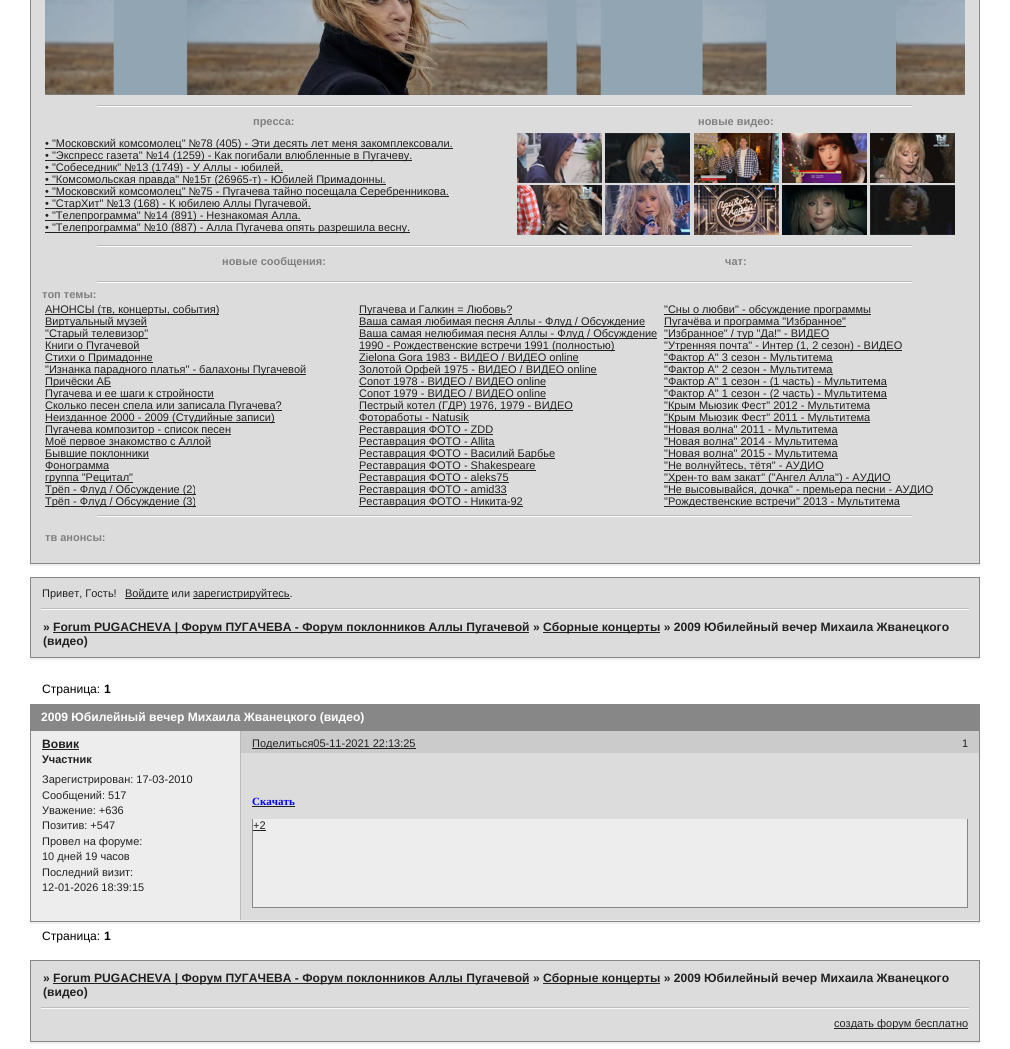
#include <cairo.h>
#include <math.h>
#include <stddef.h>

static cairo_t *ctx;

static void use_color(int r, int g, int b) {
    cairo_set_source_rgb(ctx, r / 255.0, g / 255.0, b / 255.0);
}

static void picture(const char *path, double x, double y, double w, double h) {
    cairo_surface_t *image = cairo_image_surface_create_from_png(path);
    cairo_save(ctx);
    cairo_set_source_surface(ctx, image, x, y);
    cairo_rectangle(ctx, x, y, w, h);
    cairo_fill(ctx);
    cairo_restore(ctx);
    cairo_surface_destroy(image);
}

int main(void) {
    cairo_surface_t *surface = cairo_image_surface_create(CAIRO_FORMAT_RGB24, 1010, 1049);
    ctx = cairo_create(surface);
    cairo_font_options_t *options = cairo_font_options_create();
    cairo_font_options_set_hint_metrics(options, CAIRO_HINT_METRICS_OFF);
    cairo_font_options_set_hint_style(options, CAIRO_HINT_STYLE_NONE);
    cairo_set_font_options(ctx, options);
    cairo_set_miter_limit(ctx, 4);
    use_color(255, 255, 255);
    cairo_paint(ctx);
    use_color(239, 239, 239);
    cairo_rectangle(ctx, 30, 564, 950, 2);
    cairo_fill(ctx);
    use_color(220, 220, 220);
    cairo_rectangle(ctx, 30.5, -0.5, 949, 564);
    cairo_fill_preserve(ctx);
    use_color(135, 135, 135);
    cairo_set_line_width(ctx, 1);
    cairo_stroke(ctx);
    picture("img1.png", 45, 0, 920, 95);
    picture("img2.png", 97, 105, 815, 2);
    cairo_select_font_face(ctx, "Liberation Sans", CAIRO_FONT_SLANT_NORMAL, CAIRO_FONT_WEIGHT_BOLD);
    cairo_set_font_size(ctx, 11);
    use_color(128, 128, 128);
    cairo_move_to(ctx, 253, 125);
    cairo_show_text(ctx, "пресса:");
    cairo_move_to(ctx, 698, 125);
    cairo_show_text(ctx, "новые видео:");
    use_color(33, 33, 33);
    cairo_rectangle(ctx, 45, 148, 408, 1);
    cairo_fill(ctx);
    cairo_select_font_face(ctx, "Liberation Sans", CAIRO_FONT_SLANT_NORMAL, CAIRO_FONT_WEIGHT_NORMAL);
    cairo_move_to(ctx, 45, 147);
    cairo_show_text(ctx, "• \"Московский комсомолец\" №78 (405) - Эти десять лет меня закомплексовали.");
    cairo_rectangle(ctx, 45, 160, 367, 1);
    cairo_fill(ctx);
    cairo_move_to(ctx, 45, 159);
    cairo_show_text(ctx, "• \"Экспресс газета\" №14 (1259) - Как погибали влюбленные в Пугачеву.");
    cairo_rectangle(ctx, 45, 172, 238, 1);
    cairo_fill(ctx);
    cairo_move_to(ctx, 45, 171);
    cairo_show_text(ctx, "• \"Собеседник\" №13 (1749) - У Аллы - юбилей.");
    cairo_rectangle(ctx, 45, 184, 341, 1);
    cairo_fill(ctx);
    cairo_move_to(ctx, 45, 183);
    cairo_show_text(ctx, "• \"Комсомольская правда\" №15т (26965-т) - Юбилей Примадонны.");
    cairo_rectangle(ctx, 45, 196, 404, 1);
    cairo_fill(ctx);
    cairo_move_to(ctx, 45, 195);
    cairo_show_text(ctx, "• \"Московский комсомолец\" №75 - Пугачева тайно посещала Серебренникова.");
    cairo_rectangle(ctx, 45, 208, 266, 1);
    cairo_fill(ctx);
    cairo_move_to(ctx, 45, 207);
    cairo_show_text(ctx, "• \"СтарХит\" №13 (168) - К юбилею Аллы Пугачевой.");
    cairo_rectangle(ctx, 45, 220, 256, 1);
    cairo_fill(ctx);
    cairo_move_to(ctx, 45, 219);
    cairo_show_text(ctx, "• \"Телепрограмма\" №14 (891) - Незнакомая Алла.");
    cairo_rectangle(ctx, 45, 232, 365, 1);
    cairo_fill(ctx);
    cairo_move_to(ctx, 45, 231);
    cairo_show_text(ctx, "• \"Телепрограмма\" №10 (887) - Алла Пугачева опять разрешила весну.");
    picture("img3.png", 517, 133, 85, 50);
    picture("img4.png", 605, 133, 85, 50);
    picture("img5.png", 694, 133, 85, 50);
    picture("img6.png", 782, 133, 85, 50);
    picture("img7.png", 870, 133, 85, 50);
    picture("img8.png", 517, 185, 85, 50);
    picture("img9.png", 605, 185, 85, 50);
    picture("img10.png", 694, 185, 85, 50);
    picture("img11.png", 782, 185, 85, 50);
    picture("img12.png", 870, 185, 85, 50);
    picture("img2.png", 97, 245, 815, 2);
    cairo_select_font_face(ctx, "Liberation Sans", CAIRO_FONT_SLANT_NORMAL, CAIRO_FONT_WEIGHT_BOLD);
    use_color(128, 128, 128);
    cairo_move_to(ctx, 222, 265);
    cairo_show_text(ctx, "новые сообщения:");
    cairo_move_to(ctx, 725, 265);
    cairo_show_text(ctx, "чат:");
    picture("img2.png", 97, 281, 815, 2);
    cairo_move_to(ctx, 42, 298);
    cairo_show_text(ctx, "топ темы:");
    use_color(33, 33, 33);
    cairo_rectangle(ctx, 45, 314, 174, 1);
    cairo_fill(ctx);
    cairo_select_font_face(ctx, "Liberation Sans", CAIRO_FONT_SLANT_NORMAL, CAIRO_FONT_WEIGHT_NORMAL);
    cairo_move_to(ctx, 45, 313);
    cairo_show_text(ctx, "АНОНСЫ (тв, концерты, события)");
    cairo_rectangle(ctx, 45, 326, 102, 1);
    cairo_fill(ctx);
    cairo_move_to(ctx, 45, 325);
    cairo_show_text(ctx, "Виртуальный музей");
    cairo_rectangle(ctx, 45, 338, 103, 1);
    cairo_fill(ctx);
    cairo_move_to(ctx, 45, 337);
    cairo_show_text(ctx, "\"Старый телевизор\"");
    cairo_rectangle(ctx, 45, 350, 95, 1);
    cairo_fill(ctx);
    cairo_move_to(ctx, 45, 349);
    cairo_show_text(ctx, "Книги о Пугачевой");
    cairo_rectangle(ctx, 45, 362, 108, 1);
    cairo_fill(ctx);
    cairo_move_to(ctx, 45, 361);
    cairo_show_text(ctx, "Стихи о Примадонне");
    cairo_rectangle(ctx, 45, 374, 261, 1);
    cairo_fill(ctx);
    cairo_move_to(ctx, 45, 373);
    cairo_show_text(ctx, "\"Изнанка парадного платья\" - балахоны Пугачевой");
    cairo_rectangle(ctx, 45, 386, 66, 1);
    cairo_fill(ctx);
    cairo_move_to(ctx, 45, 385);
    cairo_show_text(ctx, "Причёски АБ");
    cairo_rectangle(ctx, 45, 398, 169, 1);
    cairo_fill(ctx);
    cairo_move_to(ctx, 45, 397);
    cairo_show_text(ctx, "Пугачева и ее шаги к стройности");
    cairo_rectangle(ctx, 45, 410, 237, 1);
    cairo_fill(ctx);
    cairo_move_to(ctx, 45, 409);
    cairo_show_text(ctx, "Сколько песен спела или записала Пугачева?");
    cairo_rectangle(ctx, 45, 422, 230, 1);
    cairo_fill(ctx);
    cairo_move_to(ctx, 45, 421);
    cairo_show_text(ctx, "Неизданное 2000 - 2009 (Студийные записи)");
    cairo_rectangle(ctx, 45, 434, 186, 1);
    cairo_fill(ctx);
    cairo_move_to(ctx, 45, 433);
    cairo_show_text(ctx, "Пугачева композитор - список песен");
    cairo_rectangle(ctx, 45, 446, 166, 1);
    cairo_fill(ctx);
    cairo_move_to(ctx, 45, 445);
    cairo_show_text(ctx, "Моё первое знакомство с Аллой");
    cairo_move_to(ctx, 45, 457);
    cairo_show_text(ctx, "Бывшие поклонники");
    cairo_rectangle(ctx, 45, 458, 104, 1);
    cairo_fill(ctx);
    cairo_rectangle(ctx, 45, 470, 64, 1);
    cairo_fill(ctx);
    cairo_move_to(ctx, 45, 469);
    cairo_show_text(ctx, "Фонограмма");
    cairo_rectangle(ctx, 45, 482, 88, 1);
    cairo_fill(ctx);
    cairo_move_to(ctx, 45, 481);
    cairo_show_text(ctx, "группа \"Рецитал\"");
    cairo_rectangle(ctx, 45, 494, 151, 1);
    cairo_fill(ctx);
    cairo_move_to(ctx, 45, 493);
    cairo_show_text(ctx, "Трёп - Флуд / Обсуждение (2)");
    cairo_rectangle(ctx, 45, 506, 151, 1);
    cairo_fill(ctx);
    cairo_move_to(ctx, 45, 505);
    cairo_show_text(ctx, "Трёп - Флуд / Обсуждение (3)");
    cairo_rectangle(ctx, 359, 314, 153, 1);
    cairo_fill(ctx);
    cairo_move_to(ctx, 359, 313);
    cairo_show_text(ctx, "Пугачева и Галкин = Любовь?");
    cairo_rectangle(ctx, 359, 326, 286, 1);
    cairo_fill(ctx);
    cairo_move_to(ctx, 359, 325);
    cairo_show_text(ctx, "Ваша самая любимая песня Аллы - Флуд / Обсуждение");
    cairo_rectangle(ctx, 359, 338, 298, 1);
    cairo_fill(ctx);
    cairo_move_to(ctx, 359, 337);
    cairo_show_text(ctx, "Ваша самая нелюбимая песня Аллы - Флуд / Обсуждение");
    cairo_rectangle(ctx, 359, 350, 256, 1);
    cairo_fill(ctx);
    cairo_move_to(ctx, 359, 349);
    cairo_show_text(ctx, "1990 - Рождественские встречи 1991 (полностью)");
    cairo_rectangle(ctx, 359, 362, 220, 1);
    cairo_fill(ctx);
    cairo_move_to(ctx, 359, 361);
    cairo_show_text(ctx, "Zielona Gora 1983 - ВИДЕО / ВИДЕО online");
    cairo_rectangle(ctx, 359, 374, 238, 1);
    cairo_fill(ctx);
    cairo_move_to(ctx, 359, 373);
    cairo_show_text(ctx, "Золотой Орфей 1975 - ВИДЕО / ВИДЕО online");
    cairo_rectangle(ctx, 359, 386, 187, 1);
    cairo_fill(ctx);
    cairo_move_to(ctx, 359, 385);
    cairo_show_text(ctx, "Сопот 1978 - ВИДЕО / ВИДЕО online");
    cairo_rectangle(ctx, 359, 398, 187, 1);
    cairo_fill(ctx);
    cairo_move_to(ctx, 359, 397);
    cairo_show_text(ctx, "Сопот 1979 - ВИДЕО / ВИДЕО online");
    cairo_rectangle(ctx, 359, 410, 214, 1);
    cairo_fill(ctx);
    cairo_move_to(ctx, 359, 409);
    cairo_show_text(ctx, "Пестрый котел (ГДР) 1976, 1979 - ВИДЕО");
    cairo_rectangle(ctx, 359, 422, 110, 1);
    cairo_fill(ctx);
    cairo_move_to(ctx, 359, 421);
    cairo_show_text(ctx, "Фотоработы - Natusik");
    cairo_rectangle(ctx, 359, 434, 134, 1);
    cairo_fill(ctx);
    cairo_move_to(ctx, 359, 433);
    cairo_show_text(ctx, "Реставрация ФОТО - ZDD");
    cairo_rectangle(ctx, 359, 446, 136, 1);
    cairo_fill(ctx);
    cairo_move_to(ctx, 359, 445);
    cairo_show_text(ctx, "Реставрация ФОТО - Allita");
    cairo_rectangle(ctx, 359, 458, 196, 1);
    cairo_fill(ctx);
    cairo_move_to(ctx, 359, 457);
    cairo_show_text(ctx, "Реставрация ФОТО - Василий Барбье");
    cairo_rectangle(ctx, 359, 470, 177, 1);
    cairo_fill(ctx);
    cairo_move_to(ctx, 359, 469);
    cairo_show_text(ctx, "Реставрация ФОТО - Shakespeare");
    cairo_rectangle(ctx, 359, 482, 150, 1);
    cairo_fill(ctx);
    cairo_move_to(ctx, 359, 481);
    cairo_show_text(ctx, "Реставрация ФОТО - aleks75");
    cairo_rectangle(ctx, 359, 494, 148, 1);
    cairo_fill(ctx);
    cairo_move_to(ctx, 359, 493);
    cairo_show_text(ctx, "Реставрация ФОТО - amid33");
    cairo_rectangle(ctx, 359, 506, 164, 1);
    cairo_fill(ctx);
    cairo_move_to(ctx, 359, 505);
    cairo_show_text(ctx, "Реставрация ФОТО - Никита-92");
    cairo_rectangle(ctx, 664, 314, 207, 1);
    cairo_fill(ctx);
    cairo_move_to(ctx, 664, 313);
    cairo_show_text(ctx, "\"Сны о любви\" - обсуждение программы");
    cairo_rectangle(ctx, 664, 326, 182, 1);
    cairo_fill(ctx);
    cairo_move_to(ctx, 664, 325);
    cairo_show_text(ctx, "Пугачёва и программа \"Избранное\"");
    cairo_rectangle(ctx, 664, 338, 165, 1);
    cairo_fill(ctx);
    cairo_move_to(ctx, 664, 337);
    cairo_show_text(ctx, "\"Избранное\" / тур \"Да!\" - ВИДЕО");
    cairo_rectangle(ctx, 664, 350, 238, 1);
    cairo_fill(ctx);
    cairo_move_to(ctx, 664, 349);
    cairo_show_text(ctx, "\"Утренняя почта\" - Интер (1, 2 сезон) - ВИДЕО");
    cairo_rectangle(ctx, 664, 362, 169, 1);
    cairo_fill(ctx);
    cairo_move_to(ctx, 664, 361);
    cairo_show_text(ctx, "\"Фактор А\" 3 сезон - Мультитема");
    cairo_rectangle(ctx, 664, 374, 169, 1);
    cairo_fill(ctx);
    cairo_move_to(ctx, 664, 373);
    cairo_show_text(ctx, "\"Фактор А\" 2 сезон - Мультитема");
    cairo_rectangle(ctx, 664, 386, 223, 1);
    cairo_fill(ctx);
    cairo_move_to(ctx, 664, 385);
    cairo_show_text(ctx, "\"Фактор А\" 1 сезон - (1 часть) - Мультитема");
    cairo_rectangle(ctx, 664, 398, 223, 1);
    cairo_fill(ctx);
    cairo_move_to(ctx, 664, 397);
    cairo_show_text(ctx, "\"Фактор А\" 1 сезон - (2 часть) - Мультитема");
    cairo_rectangle(ctx, 664, 410, 206, 1);
    cairo_fill(ctx);
    cairo_move_to(ctx, 664, 409);
    cairo_show_text(ctx, "\"Крым Мьюзик Фест\" 2012 - Мультитема");
    cairo_rectangle(ctx, 664, 422, 206, 1);
    cairo_fill(ctx);
    cairo_move_to(ctx, 664, 421);
    cairo_show_text(ctx, "\"Крым Мьюзик Фест\" 2011 - Мультитема");
    cairo_rectangle(ctx, 664, 434, 174, 1);
    cairo_fill(ctx);
    cairo_move_to(ctx, 664, 433);
    cairo_show_text(ctx, "\"Новая волна\" 2011 - Мультитема");
    cairo_rectangle(ctx, 664, 446, 174, 1);
    cairo_fill(ctx);
    cairo_move_to(ctx, 664, 445);
    cairo_show_text(ctx, "\"Новая волна\" 2014 - Мультитема");
    cairo_rectangle(ctx, 664, 458, 174, 1);
    cairo_fill(ctx);
    cairo_move_to(ctx, 664, 457);
    cairo_show_text(ctx, "\"Новая волна\" 2015 - Мультитема");
    cairo_rectangle(ctx, 664, 470, 160, 1);
    cairo_fill(ctx);
    cairo_move_to(ctx, 664, 469);
    cairo_show_text(ctx, "\"Не волнуйтесь, тётя\" - АУДИО");
    cairo_rectangle(ctx, 664, 482, 227, 1);
    cairo_fill(ctx);
    cairo_move_to(ctx, 664, 481);
    cairo_show_text(ctx, "\"Хрен-то вам закат\" (\"Ангел Алла\") - АУДИО");
    cairo_rectangle(ctx, 664, 494, 269, 1);
    cairo_fill(ctx);
    cairo_move_to(ctx, 664, 493);
    cairo_show_text(ctx, "\"Не высовывайся, дочка\" - премьера песни - АУДИО");
    cairo_rectangle(ctx, 664, 506, 236, 1);
    cairo_fill(ctx);
    cairo_move_to(ctx, 664, 505);
    cairo_show_text(ctx, "\"Рождественские встречи\" 2013 - Мультитема");
    picture("img2.png", 97, 515, 815, 2);
    cairo_select_font_face(ctx, "Liberation Sans", CAIRO_FONT_SLANT_NORMAL, CAIRO_FONT_WEIGHT_BOLD);
    use_color(128, 128, 128);
    cairo_move_to(ctx, 45, 541);
    cairo_show_text(ctx, "тв анонсы:");
    use_color(220, 220, 220);
    cairo_rectangle(ctx, 31, 578, 948, 79);
    cairo_fill(ctx);
    use_color(135, 135, 135);
    cairo_rectangle(ctx, 30, 577, 950, 1);
    cairo_fill(ctx);
    cairo_rectangle(ctx, 979, 577, 1, 81);
    cairo_fill(ctx);
    cairo_rectangle(ctx, 30, 577, 1, 33);
    cairo_fill(ctx);
    cairo_select_font_face(ctx, "Liberation Sans", CAIRO_FONT_SLANT_NORMAL, CAIRO_FONT_WEIGHT_NORMAL);
    use_color(33, 33, 33);
    cairo_move_to(ctx, 42, 597);
    cairo_show_text(ctx, "Привет, Гость!");
    cairo_rectangle(ctx, 125, 598, 44, 1);
    cairo_fill(ctx);
    cairo_move_to(ctx, 125, 597);
    cairo_show_text(ctx, "Войдите или");
    cairo_rectangle(ctx, 193, 598, 97, 1);
    cairo_fill(ctx);
    cairo_move_to(ctx, 193, 597);
    cairo_show_text(ctx, "зарегистрируйтесь.");
    use_color(188, 188, 188);
    cairo_rectangle(ctx, 41, 608, 928, 1);
    cairo_fill(ctx);
    use_color(252, 252, 252);
    cairo_rectangle(ctx, 41, 609, 928, 1);
    cairo_fill(ctx);
    use_color(239, 239, 239);
    cairo_rectangle(ctx, 30, 658, 950, 2);
    cairo_fill(ctx);
    use_color(135, 135, 135);
    cairo_rectangle(ctx, 30, 657, 950, 1);
    cairo_fill(ctx);
    cairo_rectangle(ctx, 30, 608, 1, 50);
    cairo_fill(ctx);
    cairo_select_font_face(ctx, "Liberation Sans", CAIRO_FONT_SLANT_NORMAL, CAIRO_FONT_WEIGHT_BOLD);
    cairo_set_font_size(ctx, 12.1);
    use_color(33, 33, 33);
    cairo_move_to(ctx, 43, 631);
    cairo_show_text(ctx, "»");
    cairo_rectangle(ctx, 53, 632, 476, 1);
    cairo_fill(ctx);
    cairo_move_to(ctx, 53, 631);
    cairo_show_text(ctx, "Forum PUGACHEVA | Форум ПУГАЧЕВА - Форум поклонников Аллы Пугачевой »");
    cairo_rectangle(ctx, 543, 632, 117, 1);
    cairo_fill(ctx);
    cairo_move_to(ctx, 543, 631);
    cairo_show_text(ctx, "Сборные концерты » 2009 Юбилейный вечер Михаила Жванецкого");
    cairo_move_to(ctx, 43, 645);
    cairo_show_text(ctx, "(видео)");
    cairo_select_font_face(ctx, "Liberation Sans", CAIRO_FONT_SLANT_NORMAL, CAIRO_FONT_WEIGHT_NORMAL);
    use_color(0, 0, 0);
    cairo_move_to(ctx, 42, 693);
    cairo_show_text(ctx, "Страница:");
    cairo_select_font_face(ctx, "Liberation Sans", CAIRO_FONT_SLANT_NORMAL, CAIRO_FONT_WEIGHT_BOLD);
    cairo_move_to(ctx, 104, 693);
    cairo_show_text(ctx, "1");
    use_color(135, 135, 135);
    cairo_rectangle(ctx, 30, 704, 950, 27);
    cairo_fill(ctx);
    use_color(255, 255, 255);
    cairo_move_to(ctx, 41, 721);
    cairo_show_text(ctx, "2009 Юбилейный вечер Михаила Жванецкого (видео)");
    use_color(239, 239, 239);
    cairo_rectangle(ctx, 30, 922, 950, 2);
    cairo_fill(ctx);
    use_color(186, 186, 186);
    cairo_rectangle(ctx, 240, 731, 1, 23);
    cairo_fill(ctx);
    use_color(237, 237, 237);
    cairo_rectangle(ctx, 31, 753, 948, 168);
    cairo_fill(ctx);
    use_color(135, 135, 135);
    cairo_rectangle(ctx, 979, 730, 1, 192);
    cairo_fill(ctx);
    cairo_rectangle(ctx, 30, 921, 950, 1);
    cairo_fill(ctx);
    cairo_rectangle(ctx, 30, 730, 1, 24);
    cairo_fill(ctx);
    cairo_rectangle(ctx, 30, 753, 1, 169);
    cairo_fill(ctx);
    use_color(237, 237, 237);
    cairo_rectangle(ctx, 31, 731, 209, 22);
    cairo_fill(ctx);
    use_color(33, 33, 33);
    cairo_move_to(ctx, 42, 748);
    cairo_show_text(ctx, "Вовик");
    cairo_rectangle(ctx, 42, 749, 37, 1);
    cairo_fill(ctx);
    cairo_set_font_size(ctx, 11);
    cairo_move_to(ctx, 42, 763);
    cairo_show_text(ctx, "Участник");
    cairo_select_font_face(ctx, "Liberation Sans", CAIRO_FONT_SLANT_NORMAL, CAIRO_FONT_WEIGHT_NORMAL);
    cairo_move_to(ctx, 42, 783);
    cairo_show_text(ctx, "Зарегистрирован: 17-03-2010");
    cairo_move_to(ctx, 42, 799);
    cairo_show_text(ctx, "Сообщений: 517");
    cairo_move_to(ctx, 42, 814);
    cairo_show_text(ctx, "Уважение: +636");
    cairo_move_to(ctx, 42, 829);
    cairo_show_text(ctx, "Позитив: +547");
    cairo_move_to(ctx, 42, 845);
    cairo_show_text(ctx, "Провел на форуме:");
    cairo_move_to(ctx, 42, 860);
    cairo_show_text(ctx, "10 дней 19 часов");
    cairo_move_to(ctx, 42, 876);
    cairo_show_text(ctx, "Последний визит:");
    cairo_move_to(ctx, 42, 891);
    cairo_show_text(ctx, "12-01-2026 18:39:15");
    use_color(220, 220, 220);
    cairo_rectangle(ctx, 241, 753, 738, 167);
    cairo_fill(ctx);
    use_color(186, 186, 186);
    cairo_rectangle(ctx, 240, 753, 1, 167);
    cairo_fill(ctx);
    cairo_select_font_face(ctx, "Liberation Serif", CAIRO_FONT_SLANT_NORMAL, CAIRO_FONT_WEIGHT_BOLD);
    use_color(0, 0, 255);
    cairo_move_to(ctx, 252, 805);
    cairo_show_text(ctx, "Скачать");
    use_color(33, 33, 33);
    cairo_rectangle(ctx, 252, 806, 43, 1);
    cairo_fill(ctx);
    use_color(237, 237, 237);
    cairo_rectangle(ctx, 253, 819, 714, 88);
    cairo_fill(ctx);
    use_color(135, 135, 135);
    cairo_rectangle(ctx, 967, 819, 1, 89);
    cairo_fill(ctx);
    cairo_rectangle(ctx, 252, 907, 716, 1);
    cairo_fill(ctx);
    cairo_rectangle(ctx, 252, 819, 1, 89);
    cairo_fill(ctx);
    cairo_select_font_face(ctx, "Liberation Sans", CAIRO_FONT_SLANT_NORMAL, CAIRO_FONT_WEIGHT_NORMAL);
    use_color(33, 33, 33);
    cairo_move_to(ctx, 253, 829);
    cairo_show_text(ctx, "+2");
    cairo_rectangle(ctx, 253, 830, 13, 1);
    cairo_fill(ctx);
    use_color(203, 203, 203);
    cairo_rectangle(ctx, 241, 731, 738, 22);
    cairo_fill(ctx);
    use_color(33, 33, 33);
    cairo_rectangle(ctx, 252, 748, 164, 1);
    cairo_fill(ctx);
    cairo_move_to(ctx, 252, 747);
    cairo_show_text(ctx, "Поделиться05-11-2021 22:13:25");
    cairo_move_to(ctx, 962, 747);
    cairo_show_text(ctx, "1");
    cairo_set_font_size(ctx, 12.1);
    use_color(0, 0, 0);
    cairo_move_to(ctx, 42, 940);
    cairo_show_text(ctx, "Страница:");
    cairo_select_font_face(ctx, "Liberation Sans", CAIRO_FONT_SLANT_NORMAL, CAIRO_FONT_WEIGHT_BOLD);
    cairo_move_to(ctx, 104, 940);
    cairo_show_text(ctx, "1");
    use_color(135, 135, 135);
    cairo_rectangle(ctx, 30, 960, 950, 1);
    cairo_fill(ctx);
    cairo_rectangle(ctx, 979, 1007, 1, 35);
    cairo_fill(ctx);
    cairo_rectangle(ctx, 979, 960, 1, 49);
    cairo_fill(ctx);
    cairo_rectangle(ctx, 30, 1041, 950, 1);
    cairo_fill(ctx);
    cairo_rectangle(ctx, 30, 1007, 1, 35);
    cairo_fill(ctx);
    cairo_rectangle(ctx, 30, 960, 1, 49);
    cairo_fill(ctx);
    use_color(220, 220, 220);
    cairo_rectangle(ctx, 31, 961, 948, 80);
    cairo_fill(ctx);
    use_color(33, 33, 33);
    cairo_move_to(ctx, 43, 982);
    cairo_show_text(ctx, "»");
    cairo_rectangle(ctx, 53, 983, 476, 1);
    cairo_fill(ctx);
    cairo_move_to(ctx, 53, 982);
    cairo_show_text(ctx, "Forum PUGACHEVA | Форум ПУГАЧЕВА - Форум поклонников Аллы Пугачевой »");
    cairo_rectangle(ctx, 543, 983, 117, 1);
    cairo_fill(ctx);
    cairo_move_to(ctx, 543, 982);
    cairo_show_text(ctx, "Сборные концерты » 2009 Юбилейный вечер Михаила Жванецкого");
    cairo_move_to(ctx, 43, 996);
    cairo_show_text(ctx, "(видео)");
    use_color(188, 188, 188);
    cairo_rectangle(ctx, 41, 1007, 928, 1);
    cairo_fill(ctx);
    use_color(252, 252, 252);
    cairo_rectangle(ctx, 41, 1008, 928, 1);
    cairo_fill(ctx);
    use_color(239, 239, 239);
    cairo_rectangle(ctx, 30, 1042, 950, 2);
    cairo_fill(ctx);
    use_color(33, 33, 33);
    cairo_rectangle(ctx, 834, 1028, 134, 1);
    cairo_fill(ctx);
    cairo_select_font_face(ctx, "Liberation Sans", CAIRO_FONT_SLANT_NORMAL, CAIRO_FONT_WEIGHT_NORMAL);
    cairo_set_font_size(ctx, 11);
    cairo_move_to(ctx, 834, 1027);
    cairo_show_text(ctx, "создать форум бесплатно");
    cairo_surface_write_to_png(surface, "result.png");
    cairo_font_options_destroy(options);
    cairo_destroy(ctx);
    cairo_surface_destroy(surface);
    return 0;
}
